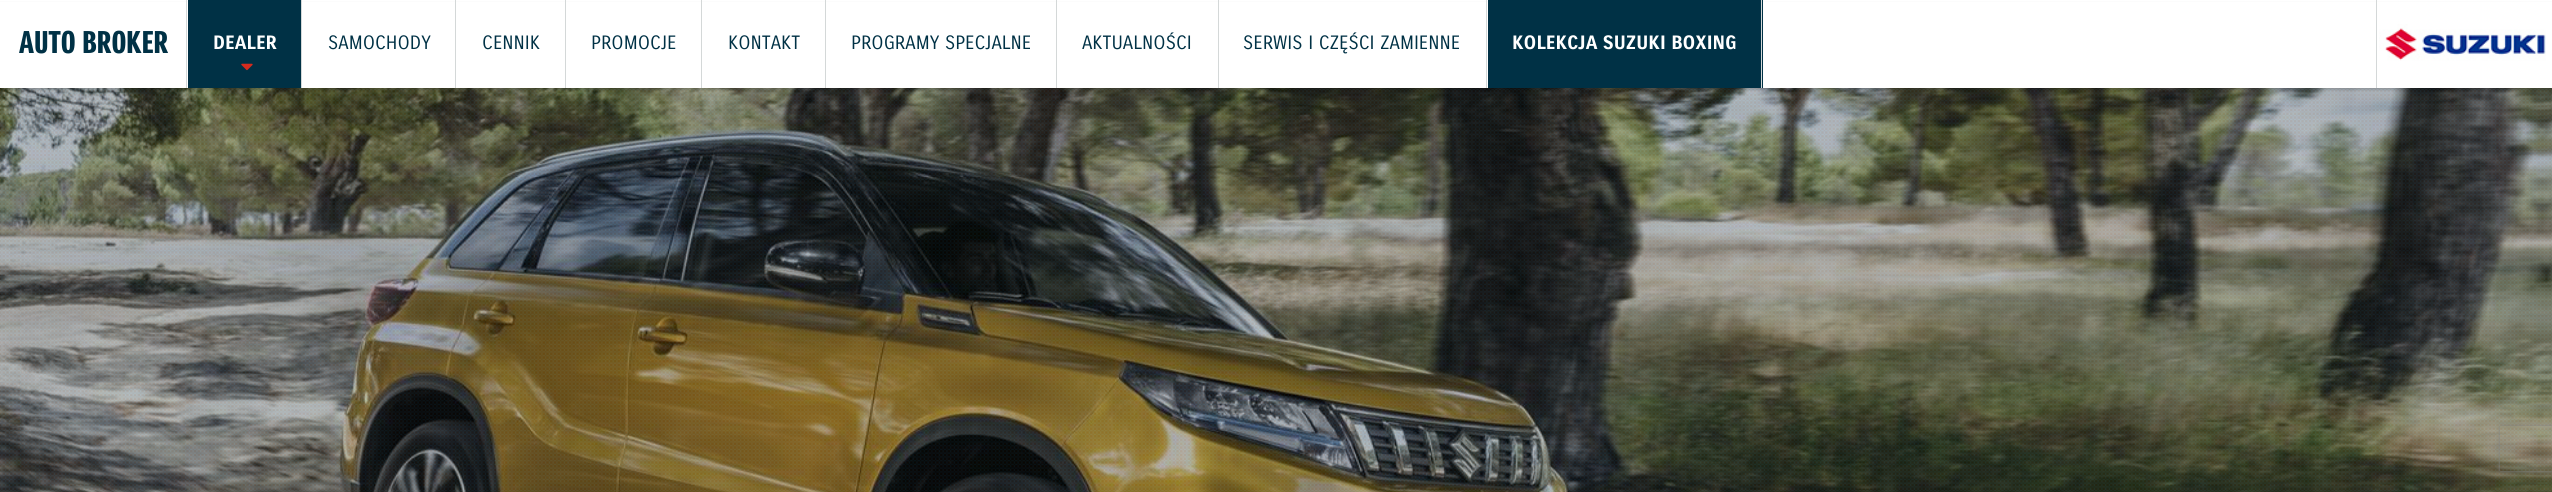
#include <cairo.h>
#include <math.h>
#include <stddef.h>

static cairo_t *ctx;

static void use_color(int r, int g, int b) {
    cairo_set_source_rgb(ctx, r / 255.0, g / 255.0, b / 255.0);
}

static void round_rect(double x, double y, double w, double h, double r) {
    cairo_new_sub_path(ctx);
    cairo_arc(ctx, x + w - r, y + h - r, r, 0, M_PI / 2);
    cairo_arc(ctx, x + r, y + h - r, r, M_PI / 2, M_PI);
    cairo_arc(ctx, x + r, y + r, r, M_PI, 1.5 * M_PI);
    cairo_arc(ctx, x + w - r, y + r, r, 1.5 * M_PI, 2 * M_PI);
    cairo_close_path(ctx);
}

static void shadow(double x, double y, double w, double h, double r, double blur, double alpha) {
    cairo_push_group_with_content(ctx, CAIRO_CONTENT_ALPHA);
    cairo_set_operator(ctx, CAIRO_OPERATOR_SOURCE);
    for (int i = 15; i >= -15 && fmin(w, h) + blur * i / 3 > 0; i -= 2) {
        double e = blur * i / 6;
        cairo_set_source_rgba(ctx, 0, 0, 0, alpha * erfc((i - 1) / 8.5) / 2);
        round_rect(x - e, y - e, w + 2 * e, h + 2 * e, fmax(0, fmin(r + e + blur * .6, fmin(w, h) / 2 + e)));
        cairo_fill(ctx);
    }
    cairo_pattern_t *soft = cairo_pop_group(ctx);
    cairo_mask(ctx, soft);
    cairo_pattern_destroy(soft);
}

static void picture(const char *path, double x, double y, double w, double h) {
    cairo_surface_t *image = cairo_image_surface_create_from_png(path);
    cairo_save(ctx);
    cairo_set_source_surface(ctx, image, x, y);
    cairo_rectangle(ctx, x, y, w, h);
    cairo_fill(ctx);
    cairo_restore(ctx);
    cairo_surface_destroy(image);
}

int main(void) {
    cairo_surface_t *surface = cairo_image_surface_create(CAIRO_FORMAT_RGB24, 2552, 492);
    ctx = cairo_create(surface);
    cairo_font_options_t *options = cairo_font_options_create();
    cairo_font_options_set_hint_metrics(options, CAIRO_HINT_METRICS_OFF);
    cairo_font_options_set_hint_style(options, CAIRO_HINT_STYLE_NONE);
    cairo_set_font_options(ctx, options);
    cairo_set_miter_limit(ctx, 4);
    use_color(255, 255, 255);
    cairo_paint(ctx);
    picture("img3.png", 0, 88, 2552, 404);
    picture("img4.png", 0, 88, 2552, 404);
    use_color(0, 0, 0);
    shadow(0, 3, 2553, 87, 0, 1, 0.15);
    use_color(255, 255, 255);
    cairo_rectangle(ctx, 0, 2, 2552, 86);
    cairo_fill(ctx);
    use_color(212, 216, 216);
    cairo_rectangle(ctx, 186, 0, 1, 88);
    cairo_fill(ctx);
    cairo_select_font_face(ctx, "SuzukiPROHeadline", CAIRO_FONT_SLANT_NORMAL, CAIRO_FONT_WEIGHT_BOLD);
    cairo_set_font_size(ctx, 30.5);
    use_color(0, 49, 69);
    cairo_move_to(ctx, 19, 53);
    cairo_show_text(ctx, "AUTO BROKER");
    use_color(212, 216, 216);
    cairo_rectangle(ctx, 301, 0, 1, 88);
    cairo_fill(ctx);
    use_color(0, 49, 69);
    cairo_rectangle(ctx, 188, 0, 113, 88);
    cairo_fill(ctx);
    cairo_select_font_face(ctx, "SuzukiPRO", CAIRO_FONT_SLANT_NORMAL, CAIRO_FONT_WEIGHT_NORMAL);
    cairo_set_font_size(ctx, 18.75);
    use_color(255, 255, 255);
    cairo_move_to(ctx, 213, 49);
    cairo_show_text(ctx, "DEALER");
    picture("img1.png", 241, 63, 12, 8);
    use_color(212, 216, 216);
    cairo_rectangle(ctx, 455, 0, 1, 88);
    cairo_fill(ctx);
    cairo_select_font_face(ctx, "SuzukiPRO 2", CAIRO_FONT_SLANT_NORMAL, CAIRO_FONT_WEIGHT_NORMAL);
    use_color(0, 49, 69);
    cairo_move_to(ctx, 328, 49);
    cairo_show_text(ctx, "SAMOCHODY");
    use_color(212, 216, 216);
    cairo_rectangle(ctx, 565, 0, 1, 88);
    cairo_fill(ctx);
    use_color(0, 49, 69);
    cairo_move_to(ctx, 482, 49);
    cairo_show_text(ctx, "CENNIK");
    use_color(212, 216, 216);
    cairo_rectangle(ctx, 701, 0, 1, 88);
    cairo_fill(ctx);
    use_color(0, 49, 69);
    cairo_move_to(ctx, 591, 49);
    cairo_show_text(ctx, "PROMOCJE");
    use_color(212, 216, 216);
    cairo_rectangle(ctx, 825, 0, 1, 88);
    cairo_fill(ctx);
    use_color(0, 49, 69);
    cairo_move_to(ctx, 728, 49);
    cairo_show_text(ctx, "KONTAKT");
    use_color(212, 216, 216);
    cairo_rectangle(ctx, 1056, 0, 1, 88);
    cairo_fill(ctx);
    use_color(0, 49, 69);
    cairo_move_to(ctx, 851, 49);
    cairo_show_text(ctx, "PROGRAMY SPECJALNE");
    use_color(212, 216, 216);
    cairo_rectangle(ctx, 1218, 0, 1, 88);
    cairo_fill(ctx);
    use_color(0, 49, 69);
    cairo_move_to(ctx, 1082, 49);
    cairo_show_text(ctx, "AKTUALNOŚCI");
    use_color(212, 216, 216);
    cairo_rectangle(ctx, 1486, 0, 1, 88);
    cairo_fill(ctx);
    use_color(0, 49, 69);
    cairo_move_to(ctx, 1243, 49);
    cairo_show_text(ctx, "SERWIS I CZĘŚCI ZAMIENNE");
    cairo_rectangle(ctx, 1488, 0, 275, 88);
    cairo_fill(ctx);
    use_color(212, 216, 216);
    cairo_rectangle(ctx, 1761, 0, 1, 88);
    cairo_fill(ctx);
    cairo_select_font_face(ctx, "SuzukiPRO", CAIRO_FONT_SLANT_NORMAL, CAIRO_FONT_WEIGHT_NORMAL);
    use_color(255, 255, 255);
    cairo_move_to(ctx, 1512, 49);
    cairo_show_text(ctx, "KOLEKCJA SUZUKI BOXING");
    use_color(212, 216, 216);
    cairo_rectangle(ctx, 2376, 0, 1, 88);
    cairo_fill(ctx);
    picture("img2.png", 2379, 24, 167, 37);
    cairo_save(ctx);
    cairo_set_fill_rule(ctx, CAIRO_FILL_RULE_EVEN_ODD);
    cairo_new_path(ctx);
    cairo_move_to(ctx, 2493, 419);
    cairo_line_to(ctx, 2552, 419);
    cairo_line_to(ctx, 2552, 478);
    cairo_line_to(ctx, 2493, 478);
    cairo_close_path(ctx);
    cairo_move_to(ctx, 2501, 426);
    cairo_line_to(ctx, 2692, 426);
    cairo_curve_to(ctx, 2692.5, 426, 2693, 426.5, 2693, 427);
    cairo_line_to(ctx, 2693, 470);
    cairo_curve_to(ctx, 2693, 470.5, 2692.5, 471, 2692, 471);
    cairo_line_to(ctx, 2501, 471);
    cairo_curve_to(ctx, 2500.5, 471, 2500, 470.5, 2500, 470);
    cairo_line_to(ctx, 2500, 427);
    cairo_curve_to(ctx, 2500, 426.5, 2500.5, 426, 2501, 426);
    cairo_close_path(ctx);
    cairo_clip(ctx);
    use_color(128, 128, 128);
    shadow(2500, 426, 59, 45, 1, 2, 1);
    cairo_restore(ctx);
    cairo_surface_write_to_png(surface, "result.png");
    cairo_font_options_destroy(options);
    cairo_destroy(ctx);
    cairo_surface_destroy(surface);
    return 0;
}
